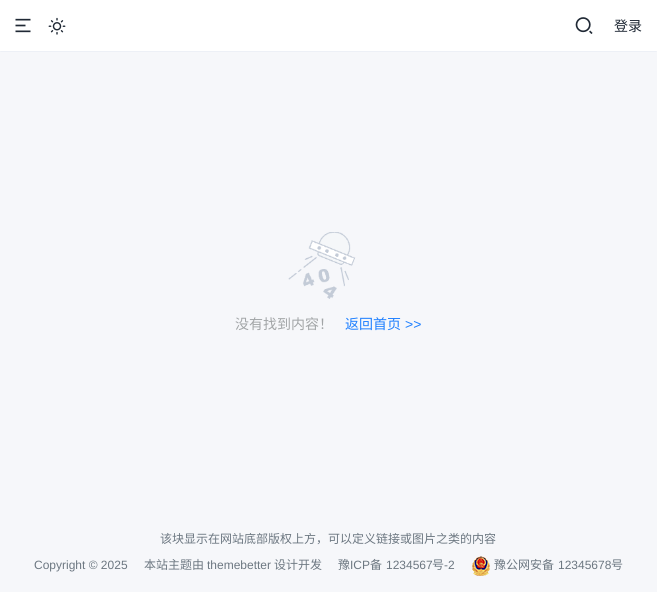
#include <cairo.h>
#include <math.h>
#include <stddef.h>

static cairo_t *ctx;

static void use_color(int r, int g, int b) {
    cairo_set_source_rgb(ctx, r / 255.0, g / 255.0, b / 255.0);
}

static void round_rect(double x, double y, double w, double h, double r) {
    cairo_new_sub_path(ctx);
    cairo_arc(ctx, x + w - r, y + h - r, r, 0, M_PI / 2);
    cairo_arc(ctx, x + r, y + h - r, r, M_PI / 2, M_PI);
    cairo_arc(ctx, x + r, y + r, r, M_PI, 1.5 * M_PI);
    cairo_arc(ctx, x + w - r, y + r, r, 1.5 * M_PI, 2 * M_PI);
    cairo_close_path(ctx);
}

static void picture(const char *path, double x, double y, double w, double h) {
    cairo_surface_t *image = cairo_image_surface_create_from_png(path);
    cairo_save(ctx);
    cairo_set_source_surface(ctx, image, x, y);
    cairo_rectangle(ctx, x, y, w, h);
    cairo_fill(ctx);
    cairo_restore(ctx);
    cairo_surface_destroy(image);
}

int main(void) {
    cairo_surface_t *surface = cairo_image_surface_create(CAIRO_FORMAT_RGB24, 657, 592);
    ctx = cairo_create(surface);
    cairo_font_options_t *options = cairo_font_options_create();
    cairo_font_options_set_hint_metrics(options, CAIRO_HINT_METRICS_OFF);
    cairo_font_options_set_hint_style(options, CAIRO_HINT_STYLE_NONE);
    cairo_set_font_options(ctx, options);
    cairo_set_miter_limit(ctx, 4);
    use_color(246, 247, 250);
    cairo_paint(ctx);
    use_color(255, 255, 255);
    cairo_rectangle(ctx, 0, 0, 657, 52);
    cairo_fill(ctx);
    picture("img1.png", 15, 18, 16, 15);
    picture("img2.png", 48, 17, 18, 18);
    picture("img3.png", 575, 17, 18, 17);
    cairo_select_font_face(ctx, "Noto Sans CJK SC", CAIRO_FONT_SLANT_NORMAL, CAIRO_FONT_WEIGHT_NORMAL);
    cairo_set_font_size(ctx, 14);
    use_color(32, 41, 53);
    cairo_move_to(ctx, 614, 31);
    cairo_show_text(ctx, "登录");
    use_color(237, 240, 246);
    round_rect(0, 51, 657, 1, 0.5);
    cairo_fill(ctx);
    picture("img4.png", 288, 232, 68, 67);
    use_color(162, 165, 167);
    cairo_move_to(ctx, 235, 329);
    cairo_show_text(ctx, "没有找到内容！");
    use_color(31, 128, 255);
    cairo_move_to(ctx, 345, 329);
    cairo_show_text(ctx, "返回首页");
    cairo_select_font_face(ctx, "Liberation Sans", CAIRO_FONT_SLANT_NORMAL, CAIRO_FONT_WEIGHT_NORMAL);
    cairo_move_to(ctx, 405, 329);
    cairo_show_text(ctx, ">>");
    cairo_select_font_face(ctx, "Noto Sans CJK SC", CAIRO_FONT_SLANT_NORMAL, CAIRO_FONT_WEIGHT_NORMAL);
    cairo_set_font_size(ctx, 12);
    use_color(108, 119, 129);
    cairo_move_to(ctx, 160, 543);
    cairo_show_text(ctx, "该块显示在网站底部版权上方，可以定义链接或图片之类的内容");
    cairo_select_font_face(ctx, "Liberation Sans", CAIRO_FONT_SLANT_NORMAL, CAIRO_FONT_WEIGHT_NORMAL);
    cairo_move_to(ctx, 34, 569);
    cairo_show_text(ctx, "Copyright © 2025");
    cairo_select_font_face(ctx, "Noto Sans CJK SC", CAIRO_FONT_SLANT_NORMAL, CAIRO_FONT_WEIGHT_NORMAL);
    cairo_move_to(ctx, 144, 569);
    cairo_show_text(ctx, "本站主题由");
    cairo_select_font_face(ctx, "Liberation Sans", CAIRO_FONT_SLANT_NORMAL, CAIRO_FONT_WEIGHT_NORMAL);
    cairo_move_to(ctx, 207, 569);
    cairo_show_text(ctx, "themebetter");
    cairo_select_font_face(ctx, "Noto Sans CJK SC", CAIRO_FONT_SLANT_NORMAL, CAIRO_FONT_WEIGHT_NORMAL);
    cairo_move_to(ctx, 274, 569);
    cairo_show_text(ctx, "设计开发");
    cairo_move_to(ctx, 338, 569);
    cairo_show_text(ctx, "豫");
    cairo_select_font_face(ctx, "Liberation Sans", CAIRO_FONT_SLANT_NORMAL, CAIRO_FONT_WEIGHT_NORMAL);
    cairo_move_to(ctx, 350, 569);
    cairo_show_text(ctx, "ICP");
    cairo_select_font_face(ctx, "Noto Sans CJK SC", CAIRO_FONT_SLANT_NORMAL, CAIRO_FONT_WEIGHT_NORMAL);
    cairo_move_to(ctx, 370, 569);
    cairo_show_text(ctx, "备");
    cairo_select_font_face(ctx, "Liberation Sans", CAIRO_FONT_SLANT_NORMAL, CAIRO_FONT_WEIGHT_NORMAL);
    cairo_move_to(ctx, 386, 569);
    cairo_show_text(ctx, "1234567");
    cairo_select_font_face(ctx, "Noto Sans CJK SC", CAIRO_FONT_SLANT_NORMAL, CAIRO_FONT_WEIGHT_NORMAL);
    cairo_move_to(ctx, 432, 569);
    cairo_show_text(ctx, "号");
    cairo_select_font_face(ctx, "Liberation Sans", CAIRO_FONT_SLANT_NORMAL, CAIRO_FONT_WEIGHT_NORMAL);
    cairo_move_to(ctx, 444, 569);
    cairo_show_text(ctx, "-2");
    picture("img5.png", 472, 556, 18, 20);
    cairo_select_font_face(ctx, "Noto Sans CJK SC", CAIRO_FONT_SLANT_NORMAL, CAIRO_FONT_WEIGHT_NORMAL);
    cairo_move_to(ctx, 494, 569);
    cairo_show_text(ctx, "豫公网安备");
    cairo_select_font_face(ctx, "Liberation Sans", CAIRO_FONT_SLANT_NORMAL, CAIRO_FONT_WEIGHT_NORMAL);
    cairo_move_to(ctx, 558, 569);
    cairo_show_text(ctx, "12345678");
    cairo_select_font_face(ctx, "Noto Sans CJK SC", CAIRO_FONT_SLANT_NORMAL, CAIRO_FONT_WEIGHT_NORMAL);
    cairo_move_to(ctx, 611, 569);
    cairo_show_text(ctx, "号");
    cairo_surface_write_to_png(surface, "result.png");
    cairo_font_options_destroy(options);
    cairo_destroy(ctx);
    cairo_surface_destroy(surface);
    return 0;
}
